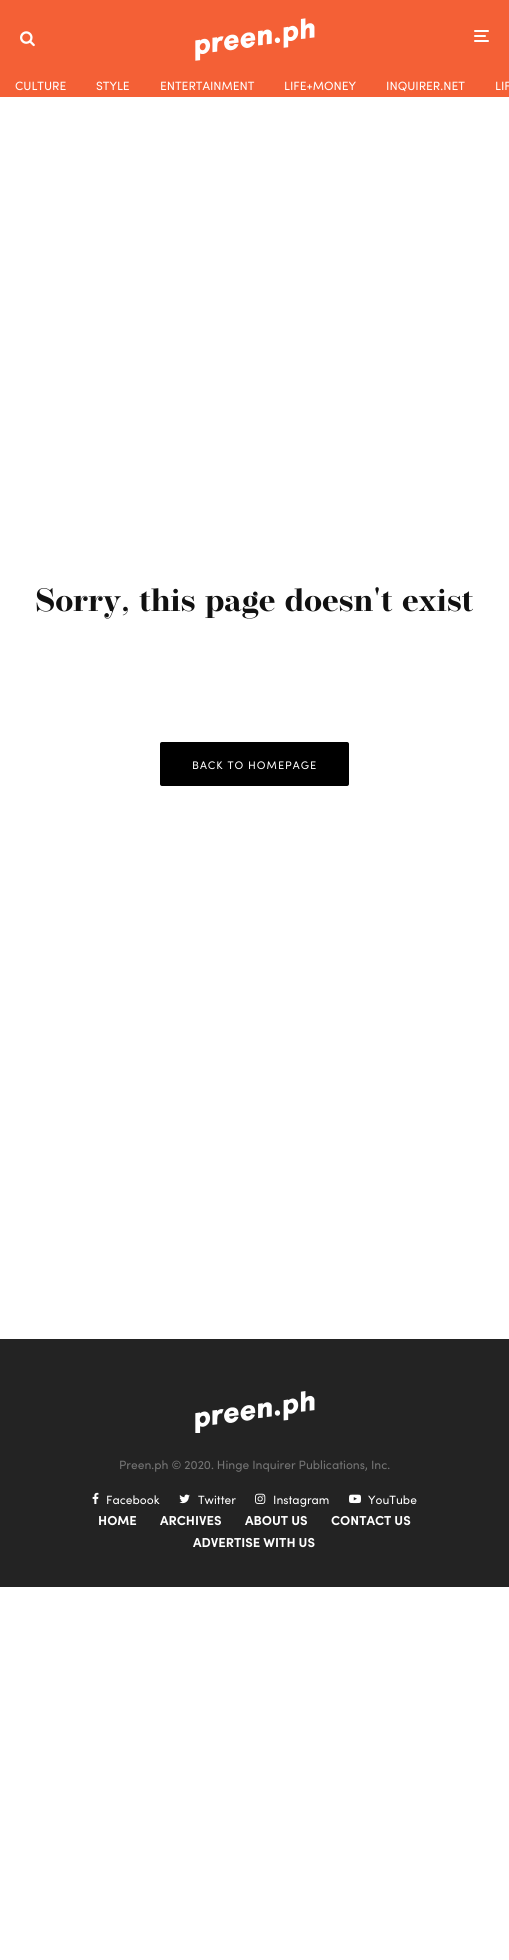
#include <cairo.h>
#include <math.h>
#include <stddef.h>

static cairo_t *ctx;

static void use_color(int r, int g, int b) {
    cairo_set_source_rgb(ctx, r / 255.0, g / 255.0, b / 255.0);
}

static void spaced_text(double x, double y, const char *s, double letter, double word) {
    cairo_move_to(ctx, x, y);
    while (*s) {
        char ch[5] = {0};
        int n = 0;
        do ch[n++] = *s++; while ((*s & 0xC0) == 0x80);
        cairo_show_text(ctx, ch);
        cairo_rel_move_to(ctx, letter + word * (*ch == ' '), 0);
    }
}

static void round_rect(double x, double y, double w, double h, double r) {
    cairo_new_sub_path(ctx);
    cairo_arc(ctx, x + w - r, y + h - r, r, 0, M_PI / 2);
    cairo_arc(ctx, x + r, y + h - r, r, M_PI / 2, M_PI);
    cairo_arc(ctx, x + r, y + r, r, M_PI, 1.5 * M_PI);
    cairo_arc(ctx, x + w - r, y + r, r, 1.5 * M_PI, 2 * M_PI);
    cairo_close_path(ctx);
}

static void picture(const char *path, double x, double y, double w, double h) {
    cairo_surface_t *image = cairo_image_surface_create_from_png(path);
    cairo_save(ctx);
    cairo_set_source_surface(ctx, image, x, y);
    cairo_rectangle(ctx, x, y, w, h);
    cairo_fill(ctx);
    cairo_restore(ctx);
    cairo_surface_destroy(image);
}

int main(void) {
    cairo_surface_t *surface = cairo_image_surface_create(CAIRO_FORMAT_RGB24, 509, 1960);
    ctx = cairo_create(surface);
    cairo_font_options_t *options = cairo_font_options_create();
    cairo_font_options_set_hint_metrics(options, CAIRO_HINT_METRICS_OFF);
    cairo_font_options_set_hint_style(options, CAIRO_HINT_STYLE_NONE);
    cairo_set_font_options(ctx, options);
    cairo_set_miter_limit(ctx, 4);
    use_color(255, 255, 255);
    cairo_paint(ctx);
    use_color(244, 96, 54);
    cairo_rectangle(ctx, 0, 0, 509, 97);
    cairo_fill(ctx);
    picture("img1.png", 20, 31, 15, 16);
    picture("img2.png", 195, 18, 120, 43);
    use_color(255, 255, 255);
    round_rect(474, 35, 12, 2, 1);
    cairo_fill(ctx);
    round_rect(474, 30, 15, 2, 1);
    cairo_fill(ctx);
    round_rect(474, 40, 15, 2, 1);
    cairo_fill(ctx);
    cairo_select_font_face(ctx, "Sofia", CAIRO_FONT_SLANT_NORMAL, CAIRO_FONT_WEIGHT_NORMAL);
    cairo_set_font_size(ctx, 12);
    cairo_move_to(ctx, 15, 90);
    cairo_show_text(ctx, "CULTURE");
    cairo_move_to(ctx, 96, 90);
    cairo_show_text(ctx, "STYLE");
    cairo_move_to(ctx, 160, 90);
    cairo_show_text(ctx, "ENTERTAINMENT");
    cairo_move_to(ctx, 284, 90);
    cairo_show_text(ctx, "LIFE+MONEY");
    cairo_move_to(ctx, 386, 90);
    cairo_show_text(ctx, "INQUIRER.NET");
    cairo_move_to(ctx, 495, 90);
    cairo_show_text(ctx, "LIF");
    cairo_select_font_face(ctx, "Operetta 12", CAIRO_FONT_SLANT_NORMAL, CAIRO_FONT_WEIGHT_BOLD);
    cairo_set_font_size(ctx, 32);
    use_color(17, 17, 17);
    cairo_move_to(ctx, 35, 611);
    cairo_show_text(ctx, "Sorry, this page doesn't exist");
    use_color(0, 0, 0);
    round_rect(160, 742, 189, 44, 2);
    cairo_fill(ctx);
    cairo_select_font_face(ctx, "Sofia", CAIRO_FONT_SLANT_NORMAL, CAIRO_FONT_WEIGHT_NORMAL);
    cairo_set_font_size(ctx, 11);
    use_color(255, 255, 255);
    spaced_text(192, 769, "BACK TO HOMEPAGE", 1, 0);
    use_color(35, 35, 35);
    cairo_rectangle(ctx, 0, 1339, 509, 248);
    cairo_fill(ctx);
    picture("img3.png", 195, 1391, 120, 42);
    cairo_set_font_size(ctx, 12);
    use_color(117, 117, 117);
    cairo_move_to(ctx, 119, 1469);
    cairo_show_text(ctx, "Preen.ph © 2020. Hinge Inquirer Publications, Inc.");
    picture("img4.png", 92, 1492, 7, 12);
    use_color(255, 255, 255);
    cairo_move_to(ctx, 106, 1504);
    cairo_show_text(ctx, "Facebook");
    picture("img5.png", 179, 1494, 11, 10);
    cairo_move_to(ctx, 198, 1504);
    cairo_show_text(ctx, "Twitter");
    picture("img6.png", 255, 1493, 11, 11);
    cairo_move_to(ctx, 273, 1504);
    cairo_show_text(ctx, "Instagram");
    picture("img7.png", 349, 1494, 12, 10);
    cairo_move_to(ctx, 368, 1504);
    cairo_show_text(ctx, "YouTube");
    cairo_select_font_face(ctx, "Sofia", CAIRO_FONT_SLANT_NORMAL, CAIRO_FONT_WEIGHT_BOLD);
    cairo_set_font_size(ctx, 13);
    cairo_move_to(ctx, 98, 1525);
    cairo_show_text(ctx, "HOME");
    cairo_move_to(ctx, 160, 1525);
    cairo_show_text(ctx, "ARCHIVES");
    cairo_move_to(ctx, 245, 1525);
    cairo_show_text(ctx, "ABOUT US");
    cairo_move_to(ctx, 331, 1525);
    cairo_show_text(ctx, "CONTACT US");
    cairo_move_to(ctx, 193, 1547);
    cairo_show_text(ctx, "ADVERTISE WITH US");
    cairo_surface_write_to_png(surface, "result.png");
    cairo_font_options_destroy(options);
    cairo_destroy(ctx);
    cairo_surface_destroy(surface);
    return 0;
}
